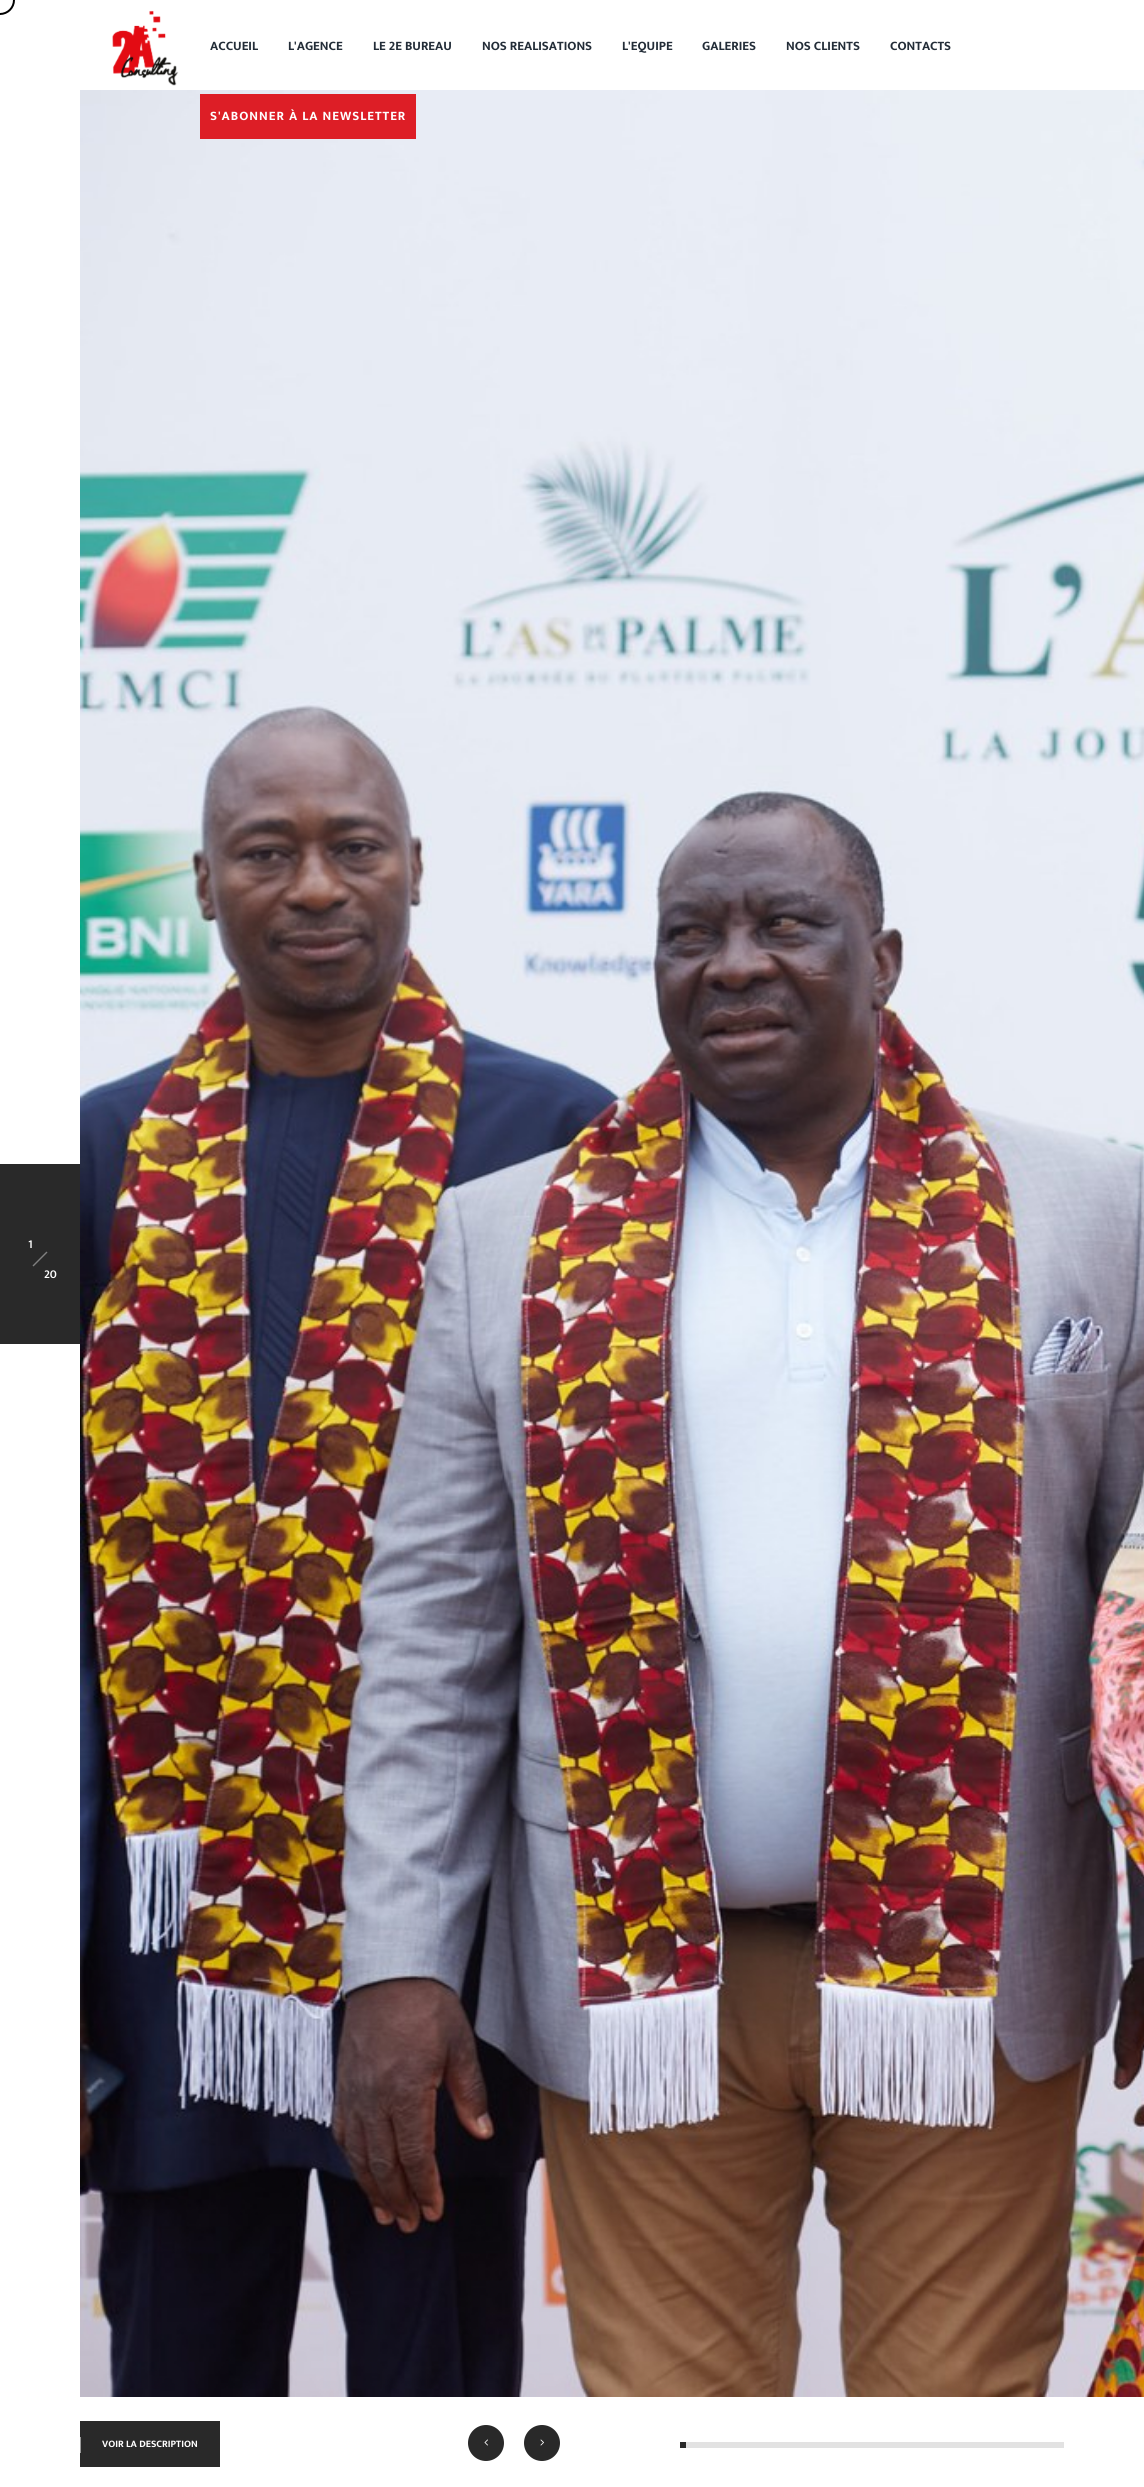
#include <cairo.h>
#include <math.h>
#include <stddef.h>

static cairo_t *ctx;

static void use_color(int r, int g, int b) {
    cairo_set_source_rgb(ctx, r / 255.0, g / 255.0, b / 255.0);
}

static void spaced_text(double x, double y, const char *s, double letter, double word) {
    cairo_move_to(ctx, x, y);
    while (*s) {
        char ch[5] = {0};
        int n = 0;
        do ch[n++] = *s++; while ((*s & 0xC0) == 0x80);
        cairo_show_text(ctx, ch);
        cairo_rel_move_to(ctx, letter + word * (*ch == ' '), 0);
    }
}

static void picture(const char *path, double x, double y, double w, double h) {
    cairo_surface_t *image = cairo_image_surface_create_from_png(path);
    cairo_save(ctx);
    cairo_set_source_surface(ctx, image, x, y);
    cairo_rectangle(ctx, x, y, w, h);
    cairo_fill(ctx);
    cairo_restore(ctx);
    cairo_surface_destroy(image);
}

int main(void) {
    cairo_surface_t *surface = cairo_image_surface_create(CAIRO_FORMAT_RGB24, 1144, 2487);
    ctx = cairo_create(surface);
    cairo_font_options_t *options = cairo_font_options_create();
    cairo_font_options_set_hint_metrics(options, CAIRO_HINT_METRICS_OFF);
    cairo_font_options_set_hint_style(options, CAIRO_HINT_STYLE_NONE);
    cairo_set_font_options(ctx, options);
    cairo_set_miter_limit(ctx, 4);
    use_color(255, 255, 255);
    cairo_paint(ctx);
    cairo_arc(ctx, 0, 0, 14, 0, 2 * M_PI);
    use_color(0, 0, 0);
    cairo_stroke(ctx);
    picture("img1.png", 112, 10, 67, 76);
    cairo_select_font_face(ctx, "Ek Mukta", CAIRO_FONT_SLANT_NORMAL, CAIRO_FONT_WEIGHT_BOLD);
    cairo_set_font_size(ctx, 13);
    use_color(35, 45, 56);
    cairo_move_to(ctx, 210, 50);
    cairo_show_text(ctx, "ACCUEIL");
    cairo_move_to(ctx, 288, 50);
    cairo_show_text(ctx, "L'AGENCE");
    cairo_move_to(ctx, 373, 50);
    cairo_show_text(ctx, "LE 2E BUREAU");
    cairo_move_to(ctx, 482, 50);
    cairo_show_text(ctx, "NOS REALISATIONS");
    cairo_move_to(ctx, 622, 50);
    cairo_show_text(ctx, "L'EQUIPE");
    cairo_move_to(ctx, 702, 50);
    cairo_show_text(ctx, "GALERIES");
    cairo_move_to(ctx, 786, 50);
    cairo_show_text(ctx, "NOS CLIENTS");
    cairo_move_to(ctx, 890, 50);
    cairo_show_text(ctx, "CONTACTS");
    picture("img2.png", 80, 90, 1064, 2307);
    use_color(221, 30, 38);
    cairo_rectangle(ctx, 200, 94, 216, 45);
    cairo_fill(ctx);
    use_color(255, 255, 255);
    spaced_text(210, 120, "S'ABONNER À LA NEWSLETTER", 1, 0);
    use_color(41, 41, 41);
    cairo_rectangle(ctx, 0, 1164, 80, 180);
    cairo_fill(ctx);
    cairo_select_font_face(ctx, "Ek Mukta SemiBold", CAIRO_FONT_SLANT_NORMAL, CAIRO_FONT_WEIGHT_NORMAL);
    cairo_set_font_size(ctx, 12);
    use_color(255, 255, 255);
    cairo_move_to(ctx, 28, 1248);
    cairo_show_text(ctx, "1");
    use_color(127, 127, 127);
    cairo_new_path(ctx);
    cairo_move_to(ctx, 32.5, 1265.5);
    cairo_line_to(ctx, 46.5, 1251.5);
    cairo_line_to(ctx, 47.5, 1252.5);
    cairo_line_to(ctx, 33.5, 1266.5);
    cairo_close_path(ctx);
    cairo_fill(ctx);
    use_color(255, 255, 255);
    cairo_move_to(ctx, 44, 1278);
    cairo_show_text(ctx, "20");
    use_color(41, 41, 41);
    cairo_rectangle(ctx, 80, 2421, 140, 46);
    cairo_fill(ctx);
    use_color(153, 153, 153);
    cairo_rectangle(ctx, 80, 2437, 1, 16);
    cairo_fill(ctx);
    cairo_select_font_face(ctx, "Ek Mukta", CAIRO_FONT_SLANT_NORMAL, CAIRO_FONT_WEIGHT_BOLD);
    cairo_set_font_size(ctx, 10);
    use_color(255, 255, 255);
    cairo_move_to(ctx, 102, 2447);
    cairo_show_text(ctx, "VOIR LA DESCRIPTION");
    use_color(41, 41, 41);
    cairo_new_path(ctx);
    cairo_arc(ctx, 486, 2443, 18, 0, 2 * M_PI);
    cairo_fill(ctx);
    picture("img3.png", 484, 2439, 4, 7);
    cairo_arc(ctx, 542, 2443, 18, 0, 2 * M_PI);
    cairo_fill(ctx);
    picture("img4.png", 540, 2439, 4, 7);
    use_color(226, 226, 226);
    cairo_rectangle(ctx, 680, 2442, 384, 6);
    cairo_fill(ctx);
    use_color(41, 41, 41);
    cairo_rectangle(ctx, 680, 2442, 6, 6);
    cairo_fill(ctx);
    cairo_surface_write_to_png(surface, "result.png");
    cairo_font_options_destroy(options);
    cairo_destroy(ctx);
    cairo_surface_destroy(surface);
    return 0;
}
